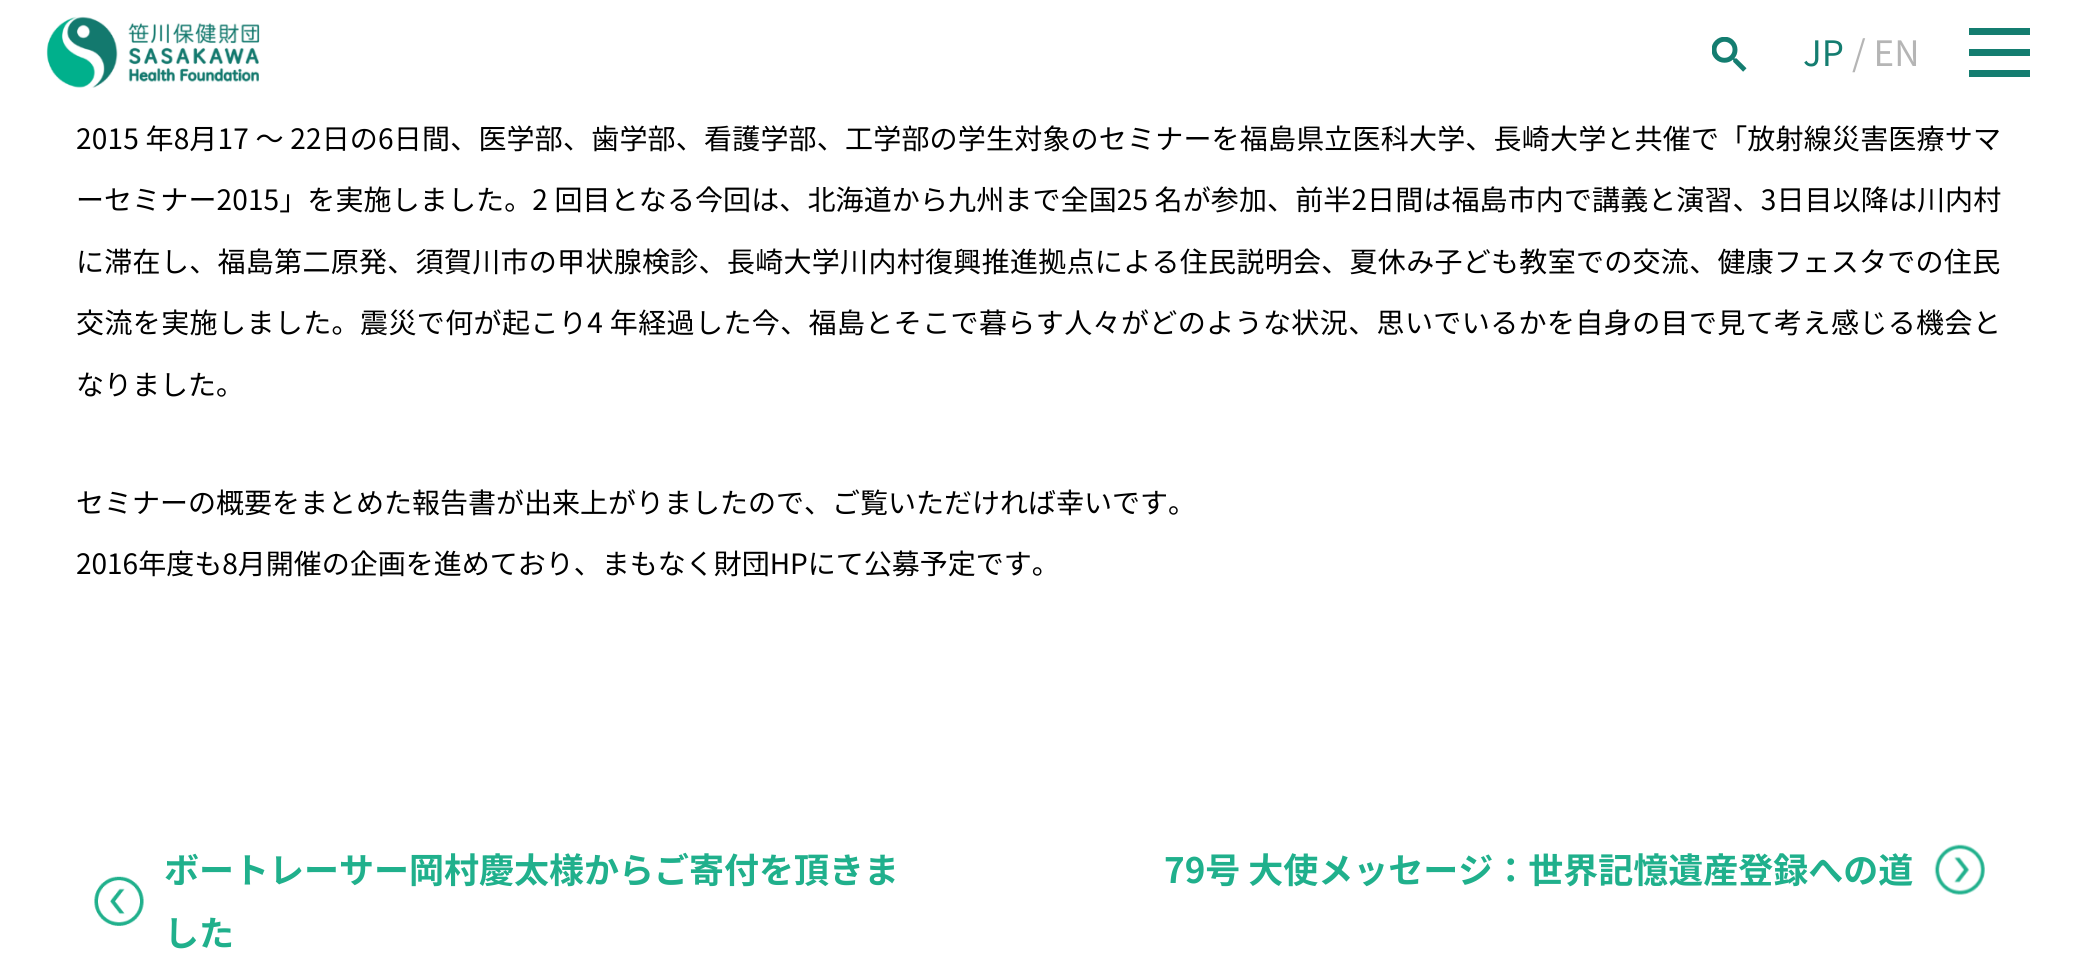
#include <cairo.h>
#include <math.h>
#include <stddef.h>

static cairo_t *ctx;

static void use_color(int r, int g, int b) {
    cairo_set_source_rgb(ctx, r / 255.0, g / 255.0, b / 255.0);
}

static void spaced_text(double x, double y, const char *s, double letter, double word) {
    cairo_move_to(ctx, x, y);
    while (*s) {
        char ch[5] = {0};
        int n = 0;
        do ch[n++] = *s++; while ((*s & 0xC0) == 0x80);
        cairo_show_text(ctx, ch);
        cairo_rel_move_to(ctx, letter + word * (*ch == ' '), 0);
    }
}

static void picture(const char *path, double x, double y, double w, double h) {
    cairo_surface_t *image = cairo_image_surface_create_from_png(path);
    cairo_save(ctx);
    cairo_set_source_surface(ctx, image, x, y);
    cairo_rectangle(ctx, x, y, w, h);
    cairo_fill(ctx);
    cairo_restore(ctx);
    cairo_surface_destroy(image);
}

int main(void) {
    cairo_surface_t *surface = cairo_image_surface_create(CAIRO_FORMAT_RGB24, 2077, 959);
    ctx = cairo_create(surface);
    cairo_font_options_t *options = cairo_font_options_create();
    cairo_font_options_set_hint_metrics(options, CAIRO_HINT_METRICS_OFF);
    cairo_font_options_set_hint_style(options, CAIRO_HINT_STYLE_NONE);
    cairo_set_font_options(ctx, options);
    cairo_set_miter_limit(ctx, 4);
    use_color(255, 255, 255);
    cairo_paint(ctx);
    picture("img1.png", 46, 16, 214, 72);
    picture("img2.png", 1712, 37, 35, 35);
    cairo_select_font_face(ctx, "Noto Sans JP", CAIRO_FONT_SLANT_NORMAL, CAIRO_FONT_WEIGHT_NORMAL);
    cairo_set_font_size(ctx, 35);
    use_color(20, 125, 112);
    cairo_move_to(ctx, 1803, 66);
    cairo_show_text(ctx, "JP");
    use_color(181, 181, 181);
    cairo_move_to(ctx, 1852, 66);
    cairo_show_text(ctx, "/ EN");
    use_color(20, 125, 112);
    cairo_rectangle(ctx, 1969, 49, 61, 7);
    cairo_fill(ctx);
    cairo_rectangle(ctx, 1969, 28, 61, 7);
    cairo_fill(ctx);
    cairo_rectangle(ctx, 1969, 70, 61, 7);
    cairo_fill(ctx);
    cairo_set_font_size(ctx, 28);
    use_color(0, 0, 0);
    spaced_text(76, 149, "2015 年8月17 ～ 22日の6日間、医学部、歯学部、看護学部、工学部の学生対象のセミナーを福島県立医科大学、長崎大学と共催で「放射線災害医療サマ", 0.2, 0);
    spaced_text(76, 210, "ーセミナー2015」を実施しました。2 回目となる今回は、北海道から九州まで全国25 名が参加、前半2日間は福島市内で講義と演習、3日目以降は川内村", 0.12, 0);
    spaced_text(76, 272, "に滞在し、福島第二原発、須賀川市の甲状腺検診、長崎大学川内村復興推進拠点による住民説明会、夏休み子ども教室での交流、健康フェスタでの住民", 0.3, 0);
    spaced_text(76, 333, "交流を実施しました。震災で何が起こり4 年経過した今、福島とそこで暮らす人々がどのような状況、思いでいるかを自身の目で見て考え感じる機会と", 0.4, 0);
    cairo_move_to(ctx, 76, 395);
    cairo_show_text(ctx, "なりました。");
    cairo_move_to(ctx, 76, 513);
    cairo_show_text(ctx, "セミナーの概要をまとめた報告書が出来上がりましたので、ご覧いただければ幸いです。");
    cairo_move_to(ctx, 76, 574);
    cairo_show_text(ctx, "2016年度も8月開催の企画を進めており、まもなく財団HPにて公募予定です。");
    cairo_select_font_face(ctx, "Noto Sans JP", CAIRO_FONT_SLANT_NORMAL, CAIRO_FONT_WEIGHT_BOLD);
    cairo_set_font_size(ctx, 35);
    use_color(32, 176, 140);
    cairo_move_to(ctx, 164, 883);
    cairo_show_text(ctx, "ボートレーサー岡村慶太様からご寄付を頂きま");
    picture("img3.png", 94, 876, 50, 50);
    cairo_move_to(ctx, 164, 946);
    cairo_show_text(ctx, "した");
    cairo_move_to(ctx, 1164, 883);
    cairo_show_text(ctx, "79号 大使メッセージ：世界記憶遺産登録への道");
    picture("img4.png", 1934, 844, 51, 51);
    cairo_surface_write_to_png(surface, "result.png");
    cairo_font_options_destroy(options);
    cairo_destroy(ctx);
    cairo_surface_destroy(surface);
    return 0;
}
